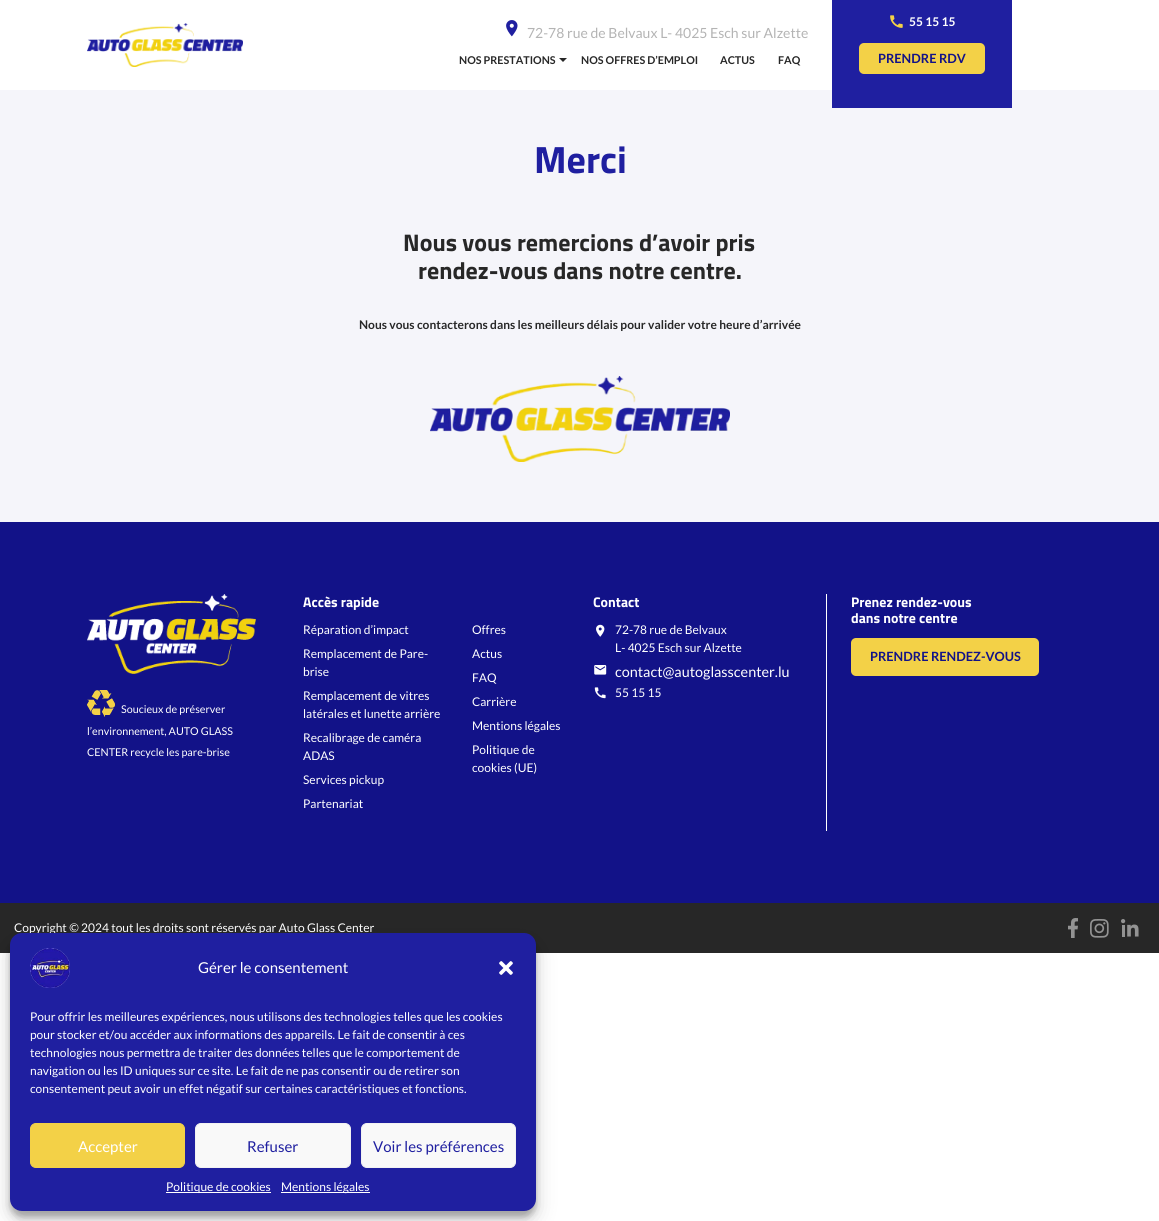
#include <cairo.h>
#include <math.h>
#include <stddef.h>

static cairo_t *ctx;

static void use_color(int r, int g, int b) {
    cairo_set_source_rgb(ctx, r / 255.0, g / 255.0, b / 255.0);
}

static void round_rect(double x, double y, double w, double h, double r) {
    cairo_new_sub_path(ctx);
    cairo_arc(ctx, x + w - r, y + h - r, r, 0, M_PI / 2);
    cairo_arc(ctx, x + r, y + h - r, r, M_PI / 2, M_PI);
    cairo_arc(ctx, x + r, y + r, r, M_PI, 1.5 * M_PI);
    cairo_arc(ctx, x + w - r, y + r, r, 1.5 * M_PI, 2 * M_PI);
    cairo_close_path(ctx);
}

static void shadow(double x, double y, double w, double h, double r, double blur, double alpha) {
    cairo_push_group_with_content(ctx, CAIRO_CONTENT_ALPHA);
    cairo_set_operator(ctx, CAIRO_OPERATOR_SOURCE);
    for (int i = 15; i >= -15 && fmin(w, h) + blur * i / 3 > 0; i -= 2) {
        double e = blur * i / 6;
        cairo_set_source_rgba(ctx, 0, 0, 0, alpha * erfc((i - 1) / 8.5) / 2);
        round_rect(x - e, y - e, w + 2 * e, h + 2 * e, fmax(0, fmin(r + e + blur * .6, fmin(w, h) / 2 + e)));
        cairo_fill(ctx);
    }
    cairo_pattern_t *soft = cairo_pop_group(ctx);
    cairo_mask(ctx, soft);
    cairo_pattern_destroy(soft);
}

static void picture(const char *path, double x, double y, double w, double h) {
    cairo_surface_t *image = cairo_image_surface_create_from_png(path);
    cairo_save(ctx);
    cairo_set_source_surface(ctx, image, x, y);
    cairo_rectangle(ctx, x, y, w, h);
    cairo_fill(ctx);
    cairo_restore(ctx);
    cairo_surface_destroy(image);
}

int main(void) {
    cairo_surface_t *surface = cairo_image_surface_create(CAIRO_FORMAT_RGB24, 1159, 1221);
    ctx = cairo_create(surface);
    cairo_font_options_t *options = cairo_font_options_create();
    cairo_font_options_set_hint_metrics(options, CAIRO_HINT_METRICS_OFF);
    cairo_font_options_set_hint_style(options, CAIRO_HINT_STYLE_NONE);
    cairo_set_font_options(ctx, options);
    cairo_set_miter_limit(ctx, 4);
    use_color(255, 255, 255);
    cairo_paint(ctx);
    picture("img1.png", 87, 23, 156, 44);
    picture("img2.png", 506, 20, 12, 17);
    cairo_select_font_face(ctx, "Lato", CAIRO_FONT_SLANT_NORMAL, CAIRO_FONT_WEIGHT_NORMAL);
    cairo_set_font_size(ctx, 14);
    use_color(180, 180, 180);
    cairo_move_to(ctx, 527, 38);
    cairo_show_text(ctx, "72-78 rue de Belvaux L- 4025 Esch sur Alzette");
    cairo_select_font_face(ctx, "Lato", CAIRO_FONT_SLANT_NORMAL, CAIRO_FONT_WEIGHT_BOLD);
    cairo_set_font_size(ctx, 10.75);
    use_color(39, 39, 39);
    cairo_move_to(ctx, 459, 64);
    cairo_show_text(ctx, "NOS PRESTATIONS");
    cairo_new_path(ctx);
    cairo_move_to(ctx, 559, 58);
    cairo_line_to(ctx, 567, 58);
    cairo_line_to(ctx, 563, 62);
    cairo_close_path(ctx);
    cairo_fill(ctx);
    cairo_move_to(ctx, 581, 64);
    cairo_show_text(ctx, "NOS OFFRES D’EMPLOI");
    cairo_move_to(ctx, 720, 64);
    cairo_show_text(ctx, "ACTUS");
    cairo_move_to(ctx, 778, 64);
    cairo_show_text(ctx, "FAQ");
    use_color(245, 245, 250);
    cairo_rectangle(ctx, 0, 90, 1159, 432);
    cairo_fill(ctx);
    use_color(31, 31, 160);
    cairo_rectangle(ctx, 832, 0, 180, 108);
    cairo_fill(ctx);
    picture("img3.png", 890, 15, 13, 13);
    cairo_set_font_size(ctx, 12);
    use_color(255, 255, 255);
    cairo_move_to(ctx, 909, 26);
    cairo_show_text(ctx, "55 15 15");
    use_color(243, 209, 71);
    round_rect(859, 43, 126, 31, 5);
    cairo_fill(ctx);
    cairo_set_font_size(ctx, 12.75);
    use_color(18, 18, 136);
    cairo_move_to(ctx, 878, 63);
    cairo_show_text(ctx, "PRENDRE RDV");
    cairo_select_font_face(ctx, "Titillium Web", CAIRO_FONT_SLANT_NORMAL, CAIRO_FONT_WEIGHT_BOLD);
    cairo_set_font_size(ctx, 38);
    use_color(31, 31, 160);
    cairo_move_to(ctx, 534, 173);
    cairo_show_text(ctx, "Merci");
    cairo_set_font_size(ctx, 24);
    use_color(39, 39, 39);
    cairo_move_to(ctx, 403, 251);
    cairo_show_text(ctx, "Nous vous remercions d’avoir pris");
    cairo_move_to(ctx, 418, 279);
    cairo_show_text(ctx, "rendez-vous dans notre centre.");
    cairo_select_font_face(ctx, "Lato", CAIRO_FONT_SLANT_NORMAL, CAIRO_FONT_WEIGHT_BOLD);
    cairo_set_font_size(ctx, 12);
    cairo_move_to(ctx, 359, 329);
    cairo_show_text(ctx, "Nous vous contacterons dans les meilleurs délais pour valider votre heure d’arrivée");
    picture("img4.png", 430, 376, 300, 86);
    use_color(18, 18, 136);
    cairo_rectangle(ctx, 0, 522, 1159, 381);
    cairo_fill(ctx);
    cairo_select_font_face(ctx, "Titillium Web", CAIRO_FONT_SLANT_NORMAL, CAIRO_FONT_WEIGHT_BOLD);
    cairo_set_font_size(ctx, 14);
    use_color(255, 255, 255);
    cairo_move_to(ctx, 303, 607);
    cairo_show_text(ctx, "Accès rapide");
    cairo_select_font_face(ctx, "Lato", CAIRO_FONT_SLANT_NORMAL, CAIRO_FONT_WEIGHT_NORMAL);
    cairo_set_font_size(ctx, 12);
    cairo_move_to(ctx, 303, 634);
    cairo_show_text(ctx, "Réparation d’impact");
    cairo_move_to(ctx, 303, 658);
    cairo_show_text(ctx, "Remplacement de Pare-");
    cairo_move_to(ctx, 303, 676);
    cairo_show_text(ctx, "brise");
    cairo_move_to(ctx, 303, 700);
    cairo_show_text(ctx, "Remplacement de vitres");
    cairo_move_to(ctx, 303, 718);
    cairo_show_text(ctx, "latérales et lunette arrière");
    cairo_move_to(ctx, 303, 742);
    cairo_show_text(ctx, "Recalibrage de caméra");
    cairo_move_to(ctx, 303, 760);
    cairo_show_text(ctx, "ADAS");
    cairo_move_to(ctx, 303, 784);
    cairo_show_text(ctx, "Services pickup");
    cairo_move_to(ctx, 303, 808);
    cairo_show_text(ctx, "Partenariat");
    cairo_move_to(ctx, 472, 634);
    cairo_show_text(ctx, "Offres");
    cairo_move_to(ctx, 472, 658);
    cairo_show_text(ctx, "Actus");
    cairo_move_to(ctx, 472, 682);
    cairo_show_text(ctx, "FAQ");
    cairo_move_to(ctx, 472, 706);
    cairo_show_text(ctx, "Carrière");
    cairo_move_to(ctx, 472, 730);
    cairo_show_text(ctx, "Mentions légales");
    cairo_move_to(ctx, 472, 754);
    cairo_show_text(ctx, "Politique de");
    cairo_move_to(ctx, 472, 772);
    cairo_show_text(ctx, "cookies (UE)");
    cairo_select_font_face(ctx, "Titillium Web", CAIRO_FONT_SLANT_NORMAL, CAIRO_FONT_WEIGHT_BOLD);
    cairo_set_font_size(ctx, 14);
    cairo_move_to(ctx, 593, 607);
    cairo_show_text(ctx, "Contact");
    picture("img5.png", 596, 624, 9, 13);
    cairo_select_font_face(ctx, "Lato", CAIRO_FONT_SLANT_NORMAL, CAIRO_FONT_WEIGHT_NORMAL);
    cairo_set_font_size(ctx, 12);
    cairo_move_to(ctx, 615, 634);
    cairo_show_text(ctx, "72-78 rue de Belvaux");
    cairo_move_to(ctx, 615, 652);
    cairo_show_text(ctx, "L- 4025 Esch sur Alzette");
    picture("img6.png", 594, 665, 13, 10);
    cairo_set_font_size(ctx, 14.4);
    cairo_move_to(ctx, 615, 677);
    cairo_show_text(ctx, "contact@autoglasscenter.lu");
    picture("img7.png", 594, 687, 12, 12);
    cairo_set_font_size(ctx, 12);
    cairo_move_to(ctx, 615, 697);
    cairo_show_text(ctx, "55 15 15");
    picture("img8.png", 87, 594, 169, 80);
    picture("img9.png", 87, 690, 28, 27);
    cairo_set_font_size(ctx, 10.75);
    cairo_move_to(ctx, 121, 713);
    cairo_show_text(ctx, "Soucieux de préserver");
    cairo_move_to(ctx, 87, 735);
    cairo_show_text(ctx, "l’environnement, AUTO GLASS");
    cairo_move_to(ctx, 87, 756);
    cairo_show_text(ctx, "CENTER recycle les pare-brise");
    cairo_rectangle(ctx, 826, 594, 1, 237);
    cairo_fill(ctx);
    cairo_select_font_face(ctx, "Titillium Web", CAIRO_FONT_SLANT_NORMAL, CAIRO_FONT_WEIGHT_BOLD);
    cairo_set_font_size(ctx, 14);
    cairo_move_to(ctx, 851, 607);
    cairo_show_text(ctx, "Prenez rendez-vous");
    cairo_move_to(ctx, 851, 623);
    cairo_show_text(ctx, "dans notre centre");
    use_color(243, 209, 71);
    round_rect(851, 638, 188, 38, 5);
    cairo_fill(ctx);
    cairo_select_font_face(ctx, "Lato", CAIRO_FONT_SLANT_NORMAL, CAIRO_FONT_WEIGHT_BOLD);
    cairo_set_font_size(ctx, 12.75);
    use_color(18, 18, 136);
    cairo_move_to(ctx, 870, 661);
    cairo_show_text(ctx, "PRENDRE RENDEZ-VOUS");
    use_color(39, 39, 39);
    cairo_rectangle(ctx, 0, 903, 1159, 50);
    cairo_fill(ctx);
    cairo_select_font_face(ctx, "Lato", CAIRO_FONT_SLANT_NORMAL, CAIRO_FONT_WEIGHT_NORMAL);
    cairo_set_font_size(ctx, 12);
    use_color(255, 255, 255);
    cairo_move_to(ctx, 14, 932);
    cairo_show_text(ctx, "Copyright © 2024 tout les droits sont réservés par Auto Glass Center");
    picture("img10.png", 1068, 918, 10, 20);
    picture("img11.png", 1090, 919, 19, 19);
    picture("img12.png", 1121, 919, 18, 18);
    use_color(0, 0, 0);
    shadow(10, 939, 526, 278, 12, 3, 0.23);
    shadow(10, 943, 526, 278, 12, 10, 0.19);
    use_color(31, 31, 160);
    round_rect(10, 933, 526, 278, 12);
    cairo_fill(ctx);
    picture("img13.png", 30, 948, 40, 40);
    cairo_set_font_size(ctx, 15);
    use_color(255, 255, 255);
    cairo_move_to(ctx, 198, 973);
    cairo_show_text(ctx, "Gérer le consentement");
    picture("img14.png", 499, 961, 14, 14);
    cairo_set_font_size(ctx, 12);
    cairo_move_to(ctx, 30, 1021);
    cairo_show_text(ctx, "Pour offrir les meilleures expériences, nous utilisons des technologies telles que les cookies");
    cairo_move_to(ctx, 30, 1039);
    cairo_show_text(ctx, "pour stocker et/ou accéder aux informations des appareils. Le fait de consentir à ces");
    cairo_move_to(ctx, 30, 1057);
    cairo_show_text(ctx, "technologies nous permettra de traiter des données telles que le comportement de");
    cairo_move_to(ctx, 30, 1075);
    cairo_show_text(ctx, "navigation ou les ID uniques sur ce site. Le fait de ne pas consentir ou de retirer son");
    cairo_move_to(ctx, 30, 1093);
    cairo_show_text(ctx, "consentement peut avoir un effet négatif sur certaines caractéristiques et fonctions.");
    use_color(243, 209, 71);
    round_rect(30.5, 1123.5, 154, 44, 5.5);
    cairo_fill_preserve(ctx);
    cairo_set_line_width(ctx, 1);
    cairo_stroke(ctx);
    cairo_set_font_size(ctx, 15);
    use_color(255, 255, 255);
    cairo_move_to(ctx, 78, 1152);
    cairo_show_text(ctx, "Accepter");
    use_color(249, 249, 249);
    round_rect(195.5, 1123.5, 155, 44, 5.5);
    cairo_fill_preserve(ctx);
    use_color(242, 242, 242);
    cairo_stroke(ctx);
    use_color(31, 31, 160);
    cairo_move_to(ctx, 247, 1152);
    cairo_show_text(ctx, "Refuser");
    use_color(249, 249, 249);
    round_rect(361.5, 1123.5, 154, 44, 5.5);
    cairo_fill_preserve(ctx);
    use_color(242, 242, 242);
    cairo_stroke(ctx);
    use_color(31, 31, 160);
    cairo_move_to(ctx, 373, 1152);
    cairo_show_text(ctx, "Voir les préférences");
    use_color(255, 255, 255);
    cairo_rectangle(ctx, 166, 1192, 105, 1);
    cairo_fill(ctx);
    cairo_set_font_size(ctx, 12);
    cairo_move_to(ctx, 166, 1191);
    cairo_show_text(ctx, "Politique de cookies");
    cairo_rectangle(ctx, 281, 1192, 89, 1);
    cairo_fill(ctx);
    cairo_move_to(ctx, 281, 1191);
    cairo_show_text(ctx, "Mentions légales");
    cairo_surface_write_to_png(surface, "result.png");
    cairo_font_options_destroy(options);
    cairo_destroy(ctx);
    cairo_surface_destroy(surface);
    return 0;
}
